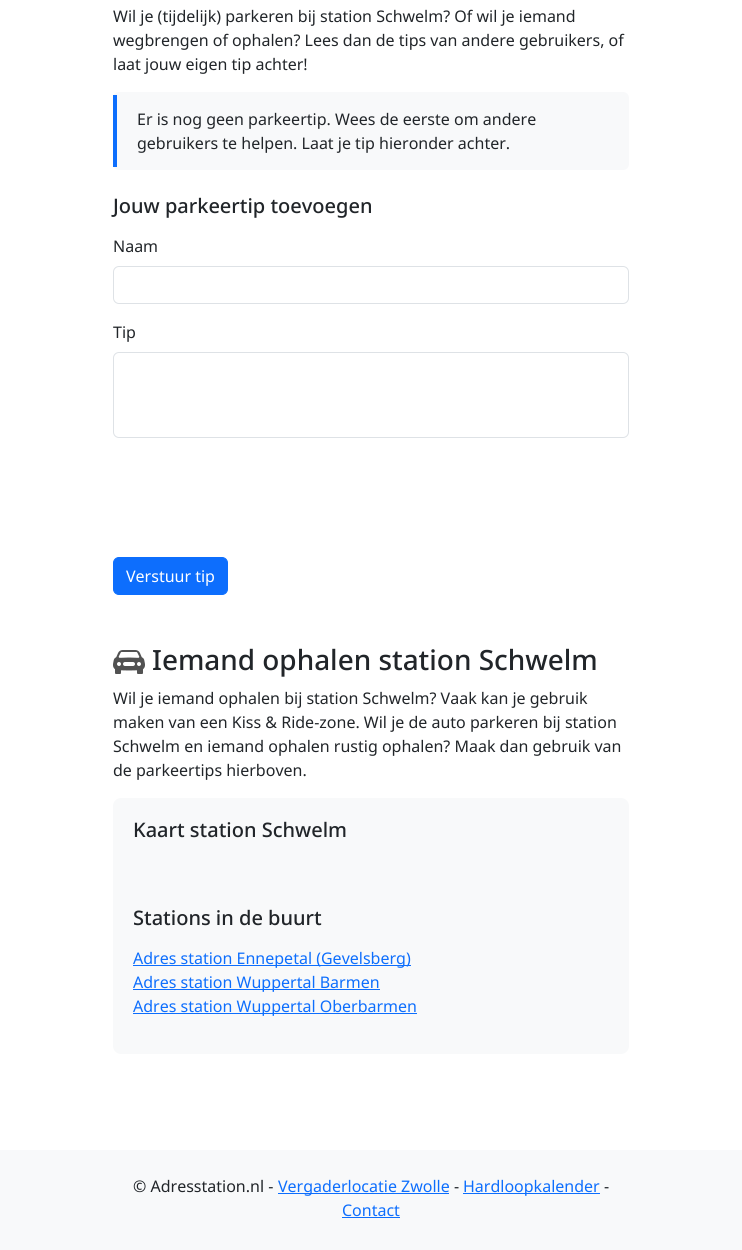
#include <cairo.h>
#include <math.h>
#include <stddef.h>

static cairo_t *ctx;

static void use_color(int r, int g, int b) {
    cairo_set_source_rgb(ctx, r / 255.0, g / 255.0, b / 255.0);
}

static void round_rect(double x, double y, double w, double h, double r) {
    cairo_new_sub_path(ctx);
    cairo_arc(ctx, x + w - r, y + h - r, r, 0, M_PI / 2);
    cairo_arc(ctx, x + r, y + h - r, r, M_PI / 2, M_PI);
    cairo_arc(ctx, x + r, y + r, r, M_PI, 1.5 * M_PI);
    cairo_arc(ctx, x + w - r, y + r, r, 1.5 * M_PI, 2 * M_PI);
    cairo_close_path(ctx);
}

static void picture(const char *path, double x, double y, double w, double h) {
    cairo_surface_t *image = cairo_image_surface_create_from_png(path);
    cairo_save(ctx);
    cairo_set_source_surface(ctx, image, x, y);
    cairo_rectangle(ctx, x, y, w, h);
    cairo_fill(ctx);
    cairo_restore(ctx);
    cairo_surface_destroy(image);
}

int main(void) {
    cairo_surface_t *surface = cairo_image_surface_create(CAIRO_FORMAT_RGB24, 742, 1250);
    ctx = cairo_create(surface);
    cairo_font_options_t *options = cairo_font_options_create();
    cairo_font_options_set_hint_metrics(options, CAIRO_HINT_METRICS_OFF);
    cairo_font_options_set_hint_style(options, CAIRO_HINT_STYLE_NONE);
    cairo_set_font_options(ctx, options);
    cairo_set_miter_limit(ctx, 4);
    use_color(255, 255, 255);
    cairo_paint(ctx);
    cairo_select_font_face(ctx, "Noto Sans", CAIRO_FONT_SLANT_NORMAL, CAIRO_FONT_WEIGHT_NORMAL);
    cairo_set_font_size(ctx, 16);
    use_color(33, 37, 41);
    cairo_move_to(ctx, 113, 22);
    cairo_show_text(ctx, "Wil je (tijdelijk) parkeren bij station Schwelm? Of wil je iemand");
    cairo_move_to(ctx, 113, 46);
    cairo_show_text(ctx, "wegbrengen of ophalen? Lees dan de tips van andere gebruikers, of");
    cairo_move_to(ctx, 113, 70);
    cairo_show_text(ctx, "laat jouw eigen tip achter!");
    use_color(248, 249, 250);
    round_rect(113, 92, 516, 78, 6);
    cairo_fill(ctx);
    use_color(13, 110, 253);
    cairo_rectangle(ctx, 113, 95, 4, 72);
    cairo_fill(ctx);
    use_color(33, 37, 41);
    cairo_move_to(ctx, 137, 125);
    cairo_show_text(ctx, "Er is nog geen parkeertip. Wees de eerste om andere");
    cairo_move_to(ctx, 137, 149);
    cairo_show_text(ctx, "gebruikers te helpen. Laat je tip hieronder achter.");
    cairo_select_font_face(ctx, "Noto Sans Medium", CAIRO_FONT_SLANT_NORMAL, CAIRO_FONT_WEIGHT_NORMAL);
    cairo_set_font_size(ctx, 20);
    cairo_move_to(ctx, 113, 213);
    cairo_show_text(ctx, "Jouw parkeertip toevoegen");
    cairo_select_font_face(ctx, "Noto Sans", CAIRO_FONT_SLANT_NORMAL, CAIRO_FONT_WEIGHT_NORMAL);
    cairo_set_font_size(ctx, 16);
    cairo_move_to(ctx, 113, 252);
    cairo_show_text(ctx, "Naam");
    round_rect(113.5, 266.5, 515, 37, 5.5);
    use_color(222, 226, 230);
    cairo_set_line_width(ctx, 1);
    cairo_stroke(ctx);
    use_color(33, 37, 41);
    cairo_move_to(ctx, 113, 338);
    cairo_show_text(ctx, "Tip");
    round_rect(113.5, 352.5, 515, 85, 5.5);
    use_color(222, 226, 230);
    cairo_stroke(ctx);
    use_color(13, 110, 253);
    round_rect(113.5, 557.5, 114, 37, 5.5);
    cairo_fill_preserve(ctx);
    cairo_stroke(ctx);
    use_color(255, 255, 255);
    cairo_move_to(ctx, 126, 582);
    cairo_show_text(ctx, "Verstuur tip");
    picture("img1.png", 113, 650, 32, 24);
    cairo_select_font_face(ctx, "Noto Sans Medium", CAIRO_FONT_SLANT_NORMAL, CAIRO_FONT_WEIGHT_NORMAL);
    cairo_set_font_size(ctx, 27.9);
    use_color(33, 37, 41);
    cairo_move_to(ctx, 152, 670);
    cairo_show_text(ctx, "Iemand ophalen station Schwelm");
    cairo_select_font_face(ctx, "Noto Sans", CAIRO_FONT_SLANT_NORMAL, CAIRO_FONT_WEIGHT_NORMAL);
    cairo_set_font_size(ctx, 16);
    cairo_move_to(ctx, 113, 704);
    cairo_show_text(ctx, "Wil je iemand ophalen bij station Schwelm? Vaak kan je gebruik");
    cairo_move_to(ctx, 113, 728);
    cairo_show_text(ctx, "maken van een Kiss & Ride-zone. Wil je de auto parkeren bij station");
    cairo_move_to(ctx, 113, 752);
    cairo_show_text(ctx, "Schwelm en iemand ophalen rustig ophalen? Maak dan gebruik van");
    cairo_move_to(ctx, 113, 776);
    cairo_show_text(ctx, "de parkeertips hierboven.");
    use_color(248, 249, 250);
    round_rect(113, 798, 516, 256, 8);
    cairo_fill(ctx);
    cairo_select_font_face(ctx, "Noto Sans Medium", CAIRO_FONT_SLANT_NORMAL, CAIRO_FONT_WEIGHT_NORMAL);
    cairo_set_font_size(ctx, 20);
    use_color(33, 37, 41);
    cairo_move_to(ctx, 133, 837);
    cairo_show_text(ctx, "Kaart station Schwelm");
    cairo_move_to(ctx, 133, 925);
    cairo_show_text(ctx, "Stations in de buurt");
    use_color(13, 110, 253);
    cairo_rectangle(ctx, 133, 965, 278, 1);
    cairo_fill(ctx);
    cairo_select_font_face(ctx, "Noto Sans", CAIRO_FONT_SLANT_NORMAL, CAIRO_FONT_WEIGHT_NORMAL);
    cairo_set_font_size(ctx, 16);
    cairo_move_to(ctx, 133, 964);
    cairo_show_text(ctx, "Adres station Ennepetal (Gevelsberg)");
    cairo_rectangle(ctx, 133, 989, 247, 1);
    cairo_fill(ctx);
    cairo_move_to(ctx, 133, 988);
    cairo_show_text(ctx, "Adres station Wuppertal Barmen");
    cairo_rectangle(ctx, 133, 1013, 284, 1);
    cairo_fill(ctx);
    cairo_move_to(ctx, 133, 1012);
    cairo_show_text(ctx, "Adres station Wuppertal Oberbarmen");
    use_color(248, 249, 250);
    cairo_rectangle(ctx, 0, 1150, 742, 100);
    cairo_fill(ctx);
    use_color(33, 37, 41);
    cairo_move_to(ctx, 133, 1192);
    cairo_show_text(ctx, "© Adresstation.nl -");
    use_color(13, 110, 253);
    cairo_rectangle(ctx, 278, 1193, 171, 1);
    cairo_fill(ctx);
    cairo_move_to(ctx, 278, 1192);
    cairo_show_text(ctx, "Vergaderlocatie Zwolle");
    use_color(33, 37, 41);
    cairo_move_to(ctx, 454, 1192);
    cairo_show_text(ctx, "-");
    use_color(13, 110, 253);
    cairo_rectangle(ctx, 463, 1193, 137, 1);
    cairo_fill(ctx);
    cairo_move_to(ctx, 463, 1192);
    cairo_show_text(ctx, "Hardloopkalender");
    use_color(33, 37, 41);
    cairo_move_to(ctx, 604, 1192);
    cairo_show_text(ctx, "-");
    use_color(13, 110, 253);
    cairo_move_to(ctx, 342, 1216);
    cairo_show_text(ctx, "Contact");
    cairo_rectangle(ctx, 342, 1217, 58, 1);
    cairo_fill(ctx);
    cairo_surface_write_to_png(surface, "result.png");
    cairo_font_options_destroy(options);
    cairo_destroy(ctx);
    cairo_surface_destroy(surface);
    return 0;
}
